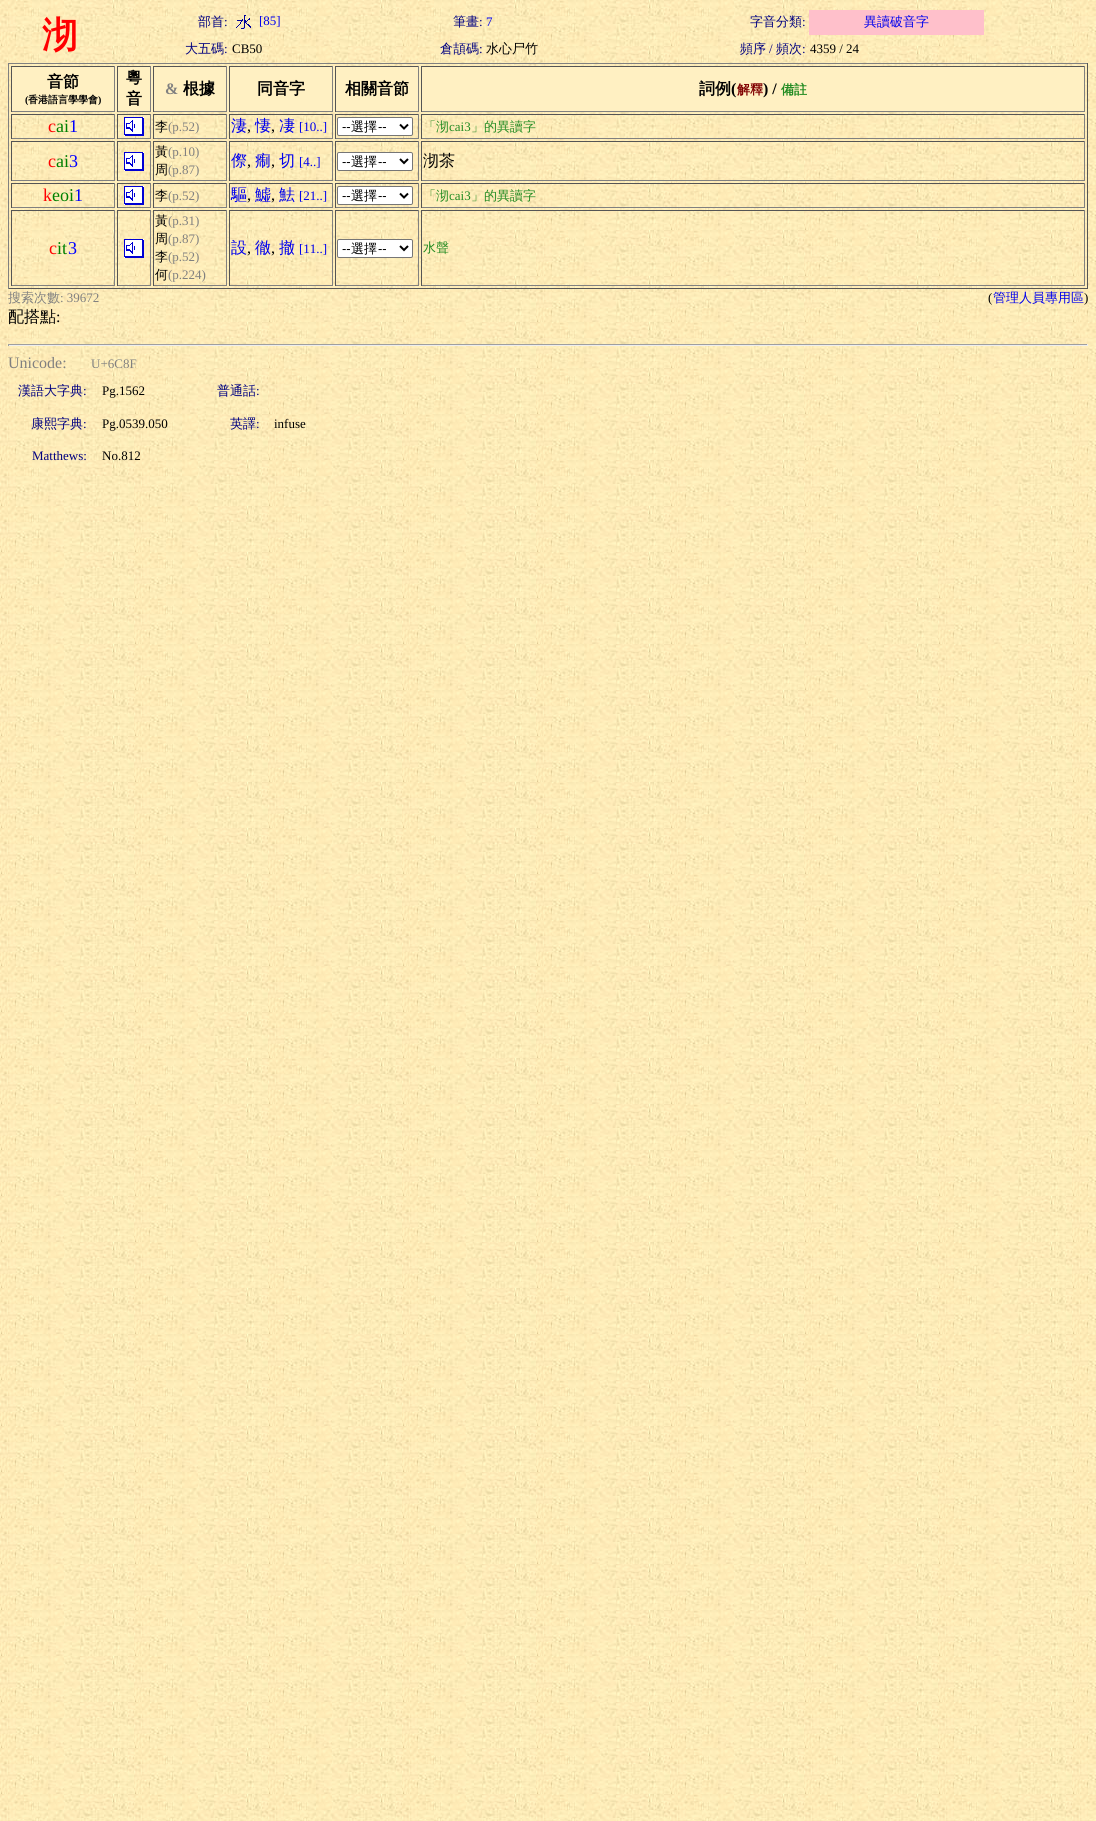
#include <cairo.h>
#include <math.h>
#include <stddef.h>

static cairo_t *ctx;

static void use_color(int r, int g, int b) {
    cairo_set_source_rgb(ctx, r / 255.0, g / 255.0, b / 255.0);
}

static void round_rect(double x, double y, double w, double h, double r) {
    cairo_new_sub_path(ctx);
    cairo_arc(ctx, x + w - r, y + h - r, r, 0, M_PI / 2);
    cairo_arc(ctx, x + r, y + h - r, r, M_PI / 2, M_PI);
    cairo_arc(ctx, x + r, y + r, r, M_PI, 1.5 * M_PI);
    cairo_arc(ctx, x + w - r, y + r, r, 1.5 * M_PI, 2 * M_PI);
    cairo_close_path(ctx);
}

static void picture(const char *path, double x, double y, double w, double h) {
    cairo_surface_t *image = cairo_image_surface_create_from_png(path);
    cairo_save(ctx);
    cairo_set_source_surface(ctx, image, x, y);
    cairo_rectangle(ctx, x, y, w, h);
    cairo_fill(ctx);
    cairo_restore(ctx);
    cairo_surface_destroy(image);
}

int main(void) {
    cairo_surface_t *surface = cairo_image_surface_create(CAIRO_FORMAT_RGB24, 1096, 1821);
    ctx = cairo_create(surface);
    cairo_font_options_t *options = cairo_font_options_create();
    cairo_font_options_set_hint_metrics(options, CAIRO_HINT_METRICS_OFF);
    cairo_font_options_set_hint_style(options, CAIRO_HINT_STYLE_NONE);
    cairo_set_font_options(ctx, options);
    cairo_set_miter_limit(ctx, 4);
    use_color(255, 255, 255);
    cairo_paint(ctx);
    picture("img1.png", 0, 0, 1096, 1821);
    cairo_select_font_face(ctx, "WenQuanYi Zen Hei", CAIRO_FONT_SLANT_NORMAL, CAIRO_FONT_WEIGHT_BOLD);
    cairo_set_font_size(ctx, 36);
    use_color(255, 0, 0);
    cairo_move_to(ctx, 42, 47);
    cairo_show_text(ctx, "沏");
    cairo_select_font_face(ctx, "WenQuanYi Zen Hei Medium", CAIRO_FONT_SLANT_NORMAL, CAIRO_FONT_WEIGHT_NORMAL);
    cairo_set_font_size(ctx, 13);
    use_color(0, 0, 128);
    cairo_move_to(ctx, 198, 26);
    cairo_show_text(ctx, "部首");
    cairo_select_font_face(ctx, "Liberation Serif", CAIRO_FONT_SLANT_NORMAL, CAIRO_FONT_WEIGHT_NORMAL);
    cairo_move_to(ctx, 224, 26);
    cairo_show_text(ctx, ":");
    picture("img2.png", 236, 15, 15, 14);
    use_color(0, 0, 238);
    cairo_move_to(ctx, 259, 25);
    cairo_show_text(ctx, "[85]");
    cairo_select_font_face(ctx, "WenQuanYi Zen Hei Medium", CAIRO_FONT_SLANT_NORMAL, CAIRO_FONT_WEIGHT_NORMAL);
    use_color(0, 0, 128);
    cairo_move_to(ctx, 453, 26);
    cairo_show_text(ctx, "筆畫");
    cairo_select_font_face(ctx, "Liberation Serif", CAIRO_FONT_SLANT_NORMAL, CAIRO_FONT_WEIGHT_NORMAL);
    cairo_move_to(ctx, 479, 26);
    cairo_show_text(ctx, ":");
    use_color(0, 0, 238);
    cairo_move_to(ctx, 486, 26);
    cairo_show_text(ctx, "7");
    cairo_select_font_face(ctx, "WenQuanYi Zen Hei Medium", CAIRO_FONT_SLANT_NORMAL, CAIRO_FONT_WEIGHT_NORMAL);
    use_color(0, 0, 128);
    cairo_move_to(ctx, 750, 26);
    cairo_show_text(ctx, "字音分類");
    cairo_select_font_face(ctx, "Liberation Serif", CAIRO_FONT_SLANT_NORMAL, CAIRO_FONT_WEIGHT_NORMAL);
    cairo_move_to(ctx, 802, 26);
    cairo_show_text(ctx, ":");
    use_color(255, 192, 203);
    cairo_rectangle(ctx, 809, 10, 175, 25);
    cairo_fill(ctx);
    cairo_select_font_face(ctx, "WenQuanYi Zen Hei Medium", CAIRO_FONT_SLANT_NORMAL, CAIRO_FONT_WEIGHT_NORMAL);
    use_color(0, 0, 238);
    cairo_move_to(ctx, 864, 26);
    cairo_show_text(ctx, "異讀破音字");
    use_color(0, 0, 128);
    cairo_move_to(ctx, 185, 53);
    cairo_show_text(ctx, "大五碼");
    cairo_select_font_face(ctx, "Liberation Serif", CAIRO_FONT_SLANT_NORMAL, CAIRO_FONT_WEIGHT_NORMAL);
    cairo_move_to(ctx, 224, 53);
    cairo_show_text(ctx, ":");
    use_color(0, 0, 0);
    cairo_move_to(ctx, 232, 53);
    cairo_show_text(ctx, "CB50");
    cairo_select_font_face(ctx, "WenQuanYi Zen Hei Medium", CAIRO_FONT_SLANT_NORMAL, CAIRO_FONT_WEIGHT_NORMAL);
    use_color(0, 0, 128);
    cairo_move_to(ctx, 440, 53);
    cairo_show_text(ctx, "倉頡碼");
    cairo_select_font_face(ctx, "Liberation Serif", CAIRO_FONT_SLANT_NORMAL, CAIRO_FONT_WEIGHT_NORMAL);
    cairo_move_to(ctx, 479, 53);
    cairo_show_text(ctx, ":");
    cairo_select_font_face(ctx, "WenQuanYi Zen Hei Medium", CAIRO_FONT_SLANT_NORMAL, CAIRO_FONT_WEIGHT_NORMAL);
    use_color(0, 0, 0);
    cairo_move_to(ctx, 486, 53);
    cairo_show_text(ctx, "水心尸竹");
    use_color(0, 0, 128);
    cairo_move_to(ctx, 740, 53);
    cairo_show_text(ctx, "頻序");
    cairo_select_font_face(ctx, "Liberation Serif", CAIRO_FONT_SLANT_NORMAL, CAIRO_FONT_WEIGHT_NORMAL);
    cairo_move_to(ctx, 769, 53);
    cairo_show_text(ctx, "/");
    cairo_select_font_face(ctx, "WenQuanYi Zen Hei Medium", CAIRO_FONT_SLANT_NORMAL, CAIRO_FONT_WEIGHT_NORMAL);
    cairo_move_to(ctx, 776, 53);
    cairo_show_text(ctx, "頻次");
    cairo_select_font_face(ctx, "Liberation Serif", CAIRO_FONT_SLANT_NORMAL, CAIRO_FONT_WEIGHT_NORMAL);
    cairo_move_to(ctx, 802, 53);
    cairo_show_text(ctx, ":");
    use_color(0, 0, 0);
    cairo_move_to(ctx, 810, 53);
    cairo_show_text(ctx, "4359 / 24");
    use_color(128, 128, 128);
    cairo_rectangle(ctx, 8, 63, 1080, 1);
    cairo_fill(ctx);
    use_color(85, 85, 85);
    cairo_rectangle(ctx, 1087, 63, 1, 226);
    cairo_fill(ctx);
    cairo_rectangle(ctx, 8, 288, 1080, 1);
    cairo_fill(ctx);
    use_color(128, 128, 128);
    cairo_rectangle(ctx, 8, 63, 1, 226);
    cairo_fill(ctx);
    use_color(255, 240, 194);
    cairo_rectangle(ctx, 12, 66, 1072, 46);
    cairo_fill(ctx);
    use_color(85, 85, 85);
    cairo_rectangle(ctx, 11, 66, 104, 1);
    cairo_fill(ctx);
    use_color(128, 128, 128);
    cairo_rectangle(ctx, 114, 66, 1, 46);
    cairo_fill(ctx);
    cairo_rectangle(ctx, 11, 111, 104, 1);
    cairo_fill(ctx);
    use_color(85, 85, 85);
    cairo_rectangle(ctx, 11, 66, 1, 46);
    cairo_fill(ctx);
    cairo_select_font_face(ctx, "WenQuanYi Zen Hei", CAIRO_FONT_SLANT_NORMAL, CAIRO_FONT_WEIGHT_BOLD);
    cairo_set_font_size(ctx, 16);
    use_color(0, 0, 0);
    cairo_move_to(ctx, 47, 87);
    cairo_show_text(ctx, "音節");
    cairo_select_font_face(ctx, "Liberation Serif", CAIRO_FONT_SLANT_NORMAL, CAIRO_FONT_WEIGHT_BOLD);
    cairo_set_font_size(ctx, 10);
    cairo_move_to(ctx, 25, 103);
    cairo_show_text(ctx, "(");
    cairo_select_font_face(ctx, "WenQuanYi Zen Hei", CAIRO_FONT_SLANT_NORMAL, CAIRO_FONT_WEIGHT_BOLD);
    cairo_move_to(ctx, 28, 103);
    cairo_show_text(ctx, "香港語言學學會");
    cairo_select_font_face(ctx, "Liberation Serif", CAIRO_FONT_SLANT_NORMAL, CAIRO_FONT_WEIGHT_BOLD);
    cairo_move_to(ctx, 98, 103);
    cairo_show_text(ctx, ")");
    use_color(85, 85, 85);
    cairo_rectangle(ctx, 117, 66, 34, 1);
    cairo_fill(ctx);
    use_color(128, 128, 128);
    cairo_rectangle(ctx, 150, 66, 1, 46);
    cairo_fill(ctx);
    cairo_rectangle(ctx, 117, 111, 34, 1);
    cairo_fill(ctx);
    use_color(85, 85, 85);
    cairo_rectangle(ctx, 117, 66, 1, 46);
    cairo_fill(ctx);
    cairo_select_font_face(ctx, "WenQuanYi Zen Hei", CAIRO_FONT_SLANT_NORMAL, CAIRO_FONT_WEIGHT_BOLD);
    cairo_set_font_size(ctx, 16);
    use_color(0, 0, 0);
    cairo_move_to(ctx, 126, 83);
    cairo_show_text(ctx, "粵");
    cairo_move_to(ctx, 126, 104);
    cairo_show_text(ctx, "音");
    use_color(85, 85, 85);
    cairo_rectangle(ctx, 153, 66, 74, 1);
    cairo_fill(ctx);
    use_color(128, 128, 128);
    cairo_rectangle(ctx, 226, 66, 1, 46);
    cairo_fill(ctx);
    cairo_rectangle(ctx, 153, 111, 74, 1);
    cairo_fill(ctx);
    use_color(85, 85, 85);
    cairo_rectangle(ctx, 153, 66, 1, 46);
    cairo_fill(ctx);
    cairo_select_font_face(ctx, "Liberation Serif", CAIRO_FONT_SLANT_NORMAL, CAIRO_FONT_WEIGHT_BOLD);
    use_color(128, 128, 128);
    cairo_move_to(ctx, 165, 94);
    cairo_show_text(ctx, "&");
    cairo_select_font_face(ctx, "WenQuanYi Zen Hei", CAIRO_FONT_SLANT_NORMAL, CAIRO_FONT_WEIGHT_BOLD);
    use_color(0, 0, 0);
    cairo_move_to(ctx, 183, 94);
    cairo_show_text(ctx, "根據");
    use_color(85, 85, 85);
    cairo_rectangle(ctx, 229, 66, 104, 1);
    cairo_fill(ctx);
    use_color(128, 128, 128);
    cairo_rectangle(ctx, 332, 66, 1, 46);
    cairo_fill(ctx);
    cairo_rectangle(ctx, 229, 111, 104, 1);
    cairo_fill(ctx);
    use_color(85, 85, 85);
    cairo_rectangle(ctx, 229, 66, 1, 46);
    cairo_fill(ctx);
    use_color(0, 0, 0);
    cairo_move_to(ctx, 257, 94);
    cairo_show_text(ctx, "同音字");
    use_color(85, 85, 85);
    cairo_rectangle(ctx, 335, 66, 84, 1);
    cairo_fill(ctx);
    use_color(128, 128, 128);
    cairo_rectangle(ctx, 418, 66, 1, 46);
    cairo_fill(ctx);
    cairo_rectangle(ctx, 335, 111, 84, 1);
    cairo_fill(ctx);
    use_color(85, 85, 85);
    cairo_rectangle(ctx, 335, 66, 1, 46);
    cairo_fill(ctx);
    use_color(0, 0, 0);
    cairo_move_to(ctx, 345, 94);
    cairo_show_text(ctx, "相關音節");
    use_color(85, 85, 85);
    cairo_rectangle(ctx, 421, 66, 664, 1);
    cairo_fill(ctx);
    use_color(128, 128, 128);
    cairo_rectangle(ctx, 1084, 66, 1, 46);
    cairo_fill(ctx);
    cairo_rectangle(ctx, 421, 111, 664, 1);
    cairo_fill(ctx);
    use_color(85, 85, 85);
    cairo_rectangle(ctx, 421, 66, 1, 46);
    cairo_fill(ctx);
    use_color(0, 0, 0);
    cairo_move_to(ctx, 699, 94);
    cairo_show_text(ctx, "詞例");
    cairo_select_font_face(ctx, "Liberation Serif", CAIRO_FONT_SLANT_NORMAL, CAIRO_FONT_WEIGHT_BOLD);
    cairo_move_to(ctx, 731, 94);
    cairo_show_text(ctx, "(");
    cairo_select_font_face(ctx, "WenQuanYi Zen Hei", CAIRO_FONT_SLANT_NORMAL, CAIRO_FONT_WEIGHT_BOLD);
    cairo_set_font_size(ctx, 13);
    use_color(128, 0, 0);
    cairo_move_to(ctx, 737, 94);
    cairo_show_text(ctx, "解釋");
    cairo_select_font_face(ctx, "Liberation Serif", CAIRO_FONT_SLANT_NORMAL, CAIRO_FONT_WEIGHT_BOLD);
    cairo_set_font_size(ctx, 16);
    use_color(0, 0, 0);
    cairo_move_to(ctx, 763, 94);
    cairo_show_text(ctx, ") /");
    cairo_select_font_face(ctx, "WenQuanYi Zen Hei", CAIRO_FONT_SLANT_NORMAL, CAIRO_FONT_WEIGHT_BOLD);
    cairo_set_font_size(ctx, 13);
    use_color(34, 139, 34);
    cairo_move_to(ctx, 781, 94);
    cairo_show_text(ctx, "備註");
    use_color(85, 85, 85);
    cairo_rectangle(ctx, 11, 114, 104, 1);
    cairo_fill(ctx);
    use_color(128, 128, 128);
    cairo_rectangle(ctx, 114, 114, 1, 25);
    cairo_fill(ctx);
    cairo_rectangle(ctx, 11, 138, 104, 1);
    cairo_fill(ctx);
    use_color(85, 85, 85);
    cairo_rectangle(ctx, 11, 114, 1, 25);
    cairo_fill(ctx);
    cairo_select_font_face(ctx, "Liberation Serif", CAIRO_FONT_SLANT_NORMAL, CAIRO_FONT_WEIGHT_NORMAL);
    cairo_set_font_size(ctx, 18);
    use_color(255, 0, 0);
    cairo_move_to(ctx, 48, 132);
    cairo_show_text(ctx, "c");
    use_color(0, 128, 0);
    cairo_move_to(ctx, 56, 132);
    cairo_show_text(ctx, "ai");
    use_color(0, 0, 255);
    cairo_move_to(ctx, 69, 132);
    cairo_show_text(ctx, "1");
    use_color(85, 85, 85);
    cairo_rectangle(ctx, 117, 114, 34, 1);
    cairo_fill(ctx);
    use_color(128, 128, 128);
    cairo_rectangle(ctx, 150, 114, 1, 25);
    cairo_fill(ctx);
    cairo_rectangle(ctx, 117, 138, 34, 1);
    cairo_fill(ctx);
    use_color(85, 85, 85);
    cairo_rectangle(ctx, 117, 114, 1, 25);
    cairo_fill(ctx);
    picture("img3.png", 124, 117, 20, 19);
    cairo_rectangle(ctx, 153, 114, 74, 1);
    cairo_fill(ctx);
    use_color(128, 128, 128);
    cairo_rectangle(ctx, 226, 114, 1, 25);
    cairo_fill(ctx);
    cairo_rectangle(ctx, 153, 138, 74, 1);
    cairo_fill(ctx);
    use_color(85, 85, 85);
    cairo_rectangle(ctx, 153, 114, 1, 25);
    cairo_fill(ctx);
    cairo_select_font_face(ctx, "WenQuanYi Zen Hei Medium", CAIRO_FONT_SLANT_NORMAL, CAIRO_FONT_WEIGHT_NORMAL);
    cairo_set_font_size(ctx, 13);
    use_color(0, 0, 0);
    cairo_move_to(ctx, 155, 131);
    cairo_show_text(ctx, "李");
    cairo_select_font_face(ctx, "Liberation Serif", CAIRO_FONT_SLANT_NORMAL, CAIRO_FONT_WEIGHT_NORMAL);
    use_color(128, 128, 128);
    cairo_move_to(ctx, 168, 131);
    cairo_show_text(ctx, "(p.52)");
    use_color(85, 85, 85);
    cairo_rectangle(ctx, 229, 114, 104, 1);
    cairo_fill(ctx);
    use_color(128, 128, 128);
    cairo_rectangle(ctx, 332, 114, 1, 25);
    cairo_fill(ctx);
    cairo_rectangle(ctx, 229, 138, 104, 1);
    cairo_fill(ctx);
    use_color(85, 85, 85);
    cairo_rectangle(ctx, 229, 114, 1, 25);
    cairo_fill(ctx);
    cairo_select_font_face(ctx, "WenQuanYi Zen Hei Medium", CAIRO_FONT_SLANT_NORMAL, CAIRO_FONT_WEIGHT_NORMAL);
    cairo_set_font_size(ctx, 16);
    use_color(0, 0, 238);
    cairo_move_to(ctx, 231, 131);
    cairo_show_text(ctx, "淒");
    cairo_select_font_face(ctx, "Liberation Serif", CAIRO_FONT_SLANT_NORMAL, CAIRO_FONT_WEIGHT_NORMAL);
    use_color(0, 0, 0);
    cairo_move_to(ctx, 247, 131);
    cairo_show_text(ctx, ",");
    cairo_select_font_face(ctx, "WenQuanYi Zen Hei Medium", CAIRO_FONT_SLANT_NORMAL, CAIRO_FONT_WEIGHT_NORMAL);
    use_color(0, 0, 238);
    cairo_move_to(ctx, 255, 131);
    cairo_show_text(ctx, "悽");
    cairo_select_font_face(ctx, "Liberation Serif", CAIRO_FONT_SLANT_NORMAL, CAIRO_FONT_WEIGHT_NORMAL);
    use_color(0, 0, 0);
    cairo_move_to(ctx, 271, 131);
    cairo_show_text(ctx, ",");
    cairo_select_font_face(ctx, "WenQuanYi Zen Hei Medium", CAIRO_FONT_SLANT_NORMAL, CAIRO_FONT_WEIGHT_NORMAL);
    use_color(0, 0, 238);
    cairo_move_to(ctx, 279, 131);
    cairo_show_text(ctx, "凄");
    cairo_select_font_face(ctx, "Liberation Serif", CAIRO_FONT_SLANT_NORMAL, CAIRO_FONT_WEIGHT_NORMAL);
    cairo_set_font_size(ctx, 13);
    cairo_move_to(ctx, 299, 131);
    cairo_show_text(ctx, "[10..]");
    use_color(85, 85, 85);
    cairo_rectangle(ctx, 335, 114, 84, 1);
    cairo_fill(ctx);
    use_color(128, 128, 128);
    cairo_rectangle(ctx, 418, 114, 1, 25);
    cairo_fill(ctx);
    cairo_rectangle(ctx, 335, 138, 84, 1);
    cairo_fill(ctx);
    use_color(85, 85, 85);
    cairo_rectangle(ctx, 335, 114, 1, 25);
    cairo_fill(ctx);
    use_color(255, 255, 255);
    round_rect(337.5, 117.5, 75, 18, 1.5);
    cairo_fill_preserve(ctx);
    use_color(118, 118, 118);
    cairo_set_line_width(ctx, 1);
    cairo_stroke(ctx);
    cairo_new_path(ctx);
    cairo_move_to(ctx, 400, 124.5);
    cairo_line_to(ctx, 404, 128.5);
    cairo_line_to(ctx, 408, 124.5);
    use_color(0, 0, 0);
    cairo_set_line_width(ctx, 2);
    cairo_stroke(ctx);
    cairo_select_font_face(ctx, "Liberation Sans", CAIRO_FONT_SLANT_NORMAL, CAIRO_FONT_WEIGHT_NORMAL);
    cairo_move_to(ctx, 342, 131);
    cairo_show_text(ctx, "--");
    cairo_select_font_face(ctx, "WenQuanYi Zen Hei Medium", CAIRO_FONT_SLANT_NORMAL, CAIRO_FONT_WEIGHT_NORMAL);
    cairo_move_to(ctx, 351, 131);
    cairo_show_text(ctx, "選擇");
    cairo_select_font_face(ctx, "Liberation Sans", CAIRO_FONT_SLANT_NORMAL, CAIRO_FONT_WEIGHT_NORMAL);
    cairo_move_to(ctx, 378, 131);
    cairo_show_text(ctx, "--");
    use_color(85, 85, 85);
    cairo_rectangle(ctx, 421, 114, 664, 1);
    cairo_fill(ctx);
    use_color(128, 128, 128);
    cairo_rectangle(ctx, 1084, 114, 1, 25);
    cairo_fill(ctx);
    cairo_rectangle(ctx, 421, 138, 664, 1);
    cairo_fill(ctx);
    use_color(85, 85, 85);
    cairo_rectangle(ctx, 421, 114, 1, 25);
    cairo_fill(ctx);
    cairo_select_font_face(ctx, "WenQuanYi Zen Hei Medium", CAIRO_FONT_SLANT_NORMAL, CAIRO_FONT_WEIGHT_NORMAL);
    use_color(34, 139, 34);
    cairo_move_to(ctx, 423, 131);
    cairo_show_text(ctx, "「沏");
    cairo_select_font_face(ctx, "Liberation Serif", CAIRO_FONT_SLANT_NORMAL, CAIRO_FONT_WEIGHT_NORMAL);
    cairo_move_to(ctx, 449, 131);
    cairo_show_text(ctx, "cai3");
    cairo_select_font_face(ctx, "WenQuanYi Zen Hei Medium", CAIRO_FONT_SLANT_NORMAL, CAIRO_FONT_WEIGHT_NORMAL);
    cairo_move_to(ctx, 471, 131);
    cairo_show_text(ctx, "」的異讀字");
    use_color(85, 85, 85);
    cairo_rectangle(ctx, 11, 141, 104, 1);
    cairo_fill(ctx);
    use_color(128, 128, 128);
    cairo_rectangle(ctx, 114, 141, 1, 40);
    cairo_fill(ctx);
    cairo_rectangle(ctx, 11, 180, 104, 1);
    cairo_fill(ctx);
    use_color(85, 85, 85);
    cairo_rectangle(ctx, 11, 141, 1, 40);
    cairo_fill(ctx);
    cairo_select_font_face(ctx, "Liberation Serif", CAIRO_FONT_SLANT_NORMAL, CAIRO_FONT_WEIGHT_NORMAL);
    cairo_set_font_size(ctx, 18);
    use_color(255, 0, 0);
    cairo_move_to(ctx, 48, 167);
    cairo_show_text(ctx, "c");
    use_color(0, 128, 0);
    cairo_move_to(ctx, 56, 167);
    cairo_show_text(ctx, "ai");
    use_color(0, 0, 255);
    cairo_move_to(ctx, 69, 167);
    cairo_show_text(ctx, "3");
    use_color(85, 85, 85);
    cairo_rectangle(ctx, 117, 141, 34, 1);
    cairo_fill(ctx);
    use_color(128, 128, 128);
    cairo_rectangle(ctx, 150, 141, 1, 40);
    cairo_fill(ctx);
    cairo_rectangle(ctx, 117, 180, 34, 1);
    cairo_fill(ctx);
    use_color(85, 85, 85);
    cairo_rectangle(ctx, 117, 141, 1, 40);
    cairo_fill(ctx);
    picture("img3.png", 124, 152, 20, 19);
    cairo_rectangle(ctx, 153, 141, 74, 1);
    cairo_fill(ctx);
    use_color(128, 128, 128);
    cairo_rectangle(ctx, 226, 141, 1, 40);
    cairo_fill(ctx);
    cairo_rectangle(ctx, 153, 180, 74, 1);
    cairo_fill(ctx);
    use_color(85, 85, 85);
    cairo_rectangle(ctx, 153, 141, 1, 40);
    cairo_fill(ctx);
    cairo_select_font_face(ctx, "WenQuanYi Zen Hei Medium", CAIRO_FONT_SLANT_NORMAL, CAIRO_FONT_WEIGHT_NORMAL);
    cairo_set_font_size(ctx, 13);
    use_color(0, 0, 0);
    cairo_move_to(ctx, 155, 156);
    cairo_show_text(ctx, "黃");
    cairo_select_font_face(ctx, "Liberation Serif", CAIRO_FONT_SLANT_NORMAL, CAIRO_FONT_WEIGHT_NORMAL);
    use_color(128, 128, 128);
    cairo_move_to(ctx, 168, 156);
    cairo_show_text(ctx, "(p.10)");
    cairo_select_font_face(ctx, "WenQuanYi Zen Hei Medium", CAIRO_FONT_SLANT_NORMAL, CAIRO_FONT_WEIGHT_NORMAL);
    use_color(0, 0, 0);
    cairo_move_to(ctx, 155, 174);
    cairo_show_text(ctx, "周");
    cairo_select_font_face(ctx, "Liberation Serif", CAIRO_FONT_SLANT_NORMAL, CAIRO_FONT_WEIGHT_NORMAL);
    use_color(128, 128, 128);
    cairo_move_to(ctx, 168, 174);
    cairo_show_text(ctx, "(p.87)");
    use_color(85, 85, 85);
    cairo_rectangle(ctx, 229, 141, 104, 1);
    cairo_fill(ctx);
    use_color(128, 128, 128);
    cairo_rectangle(ctx, 332, 141, 1, 40);
    cairo_fill(ctx);
    cairo_rectangle(ctx, 229, 180, 104, 1);
    cairo_fill(ctx);
    use_color(85, 85, 85);
    cairo_rectangle(ctx, 229, 141, 1, 40);
    cairo_fill(ctx);
    cairo_select_font_face(ctx, "WenQuanYi Zen Hei Medium", CAIRO_FONT_SLANT_NORMAL, CAIRO_FONT_WEIGHT_NORMAL);
    cairo_set_font_size(ctx, 16);
    use_color(0, 0, 238);
    cairo_move_to(ctx, 231, 166);
    cairo_show_text(ctx, "傺");
    cairo_select_font_face(ctx, "Liberation Serif", CAIRO_FONT_SLANT_NORMAL, CAIRO_FONT_WEIGHT_NORMAL);
    use_color(0, 0, 0);
    cairo_move_to(ctx, 247, 166);
    cairo_show_text(ctx, ",");
    cairo_select_font_face(ctx, "WenQuanYi Zen Hei Medium", CAIRO_FONT_SLANT_NORMAL, CAIRO_FONT_WEIGHT_NORMAL);
    use_color(0, 0, 238);
    cairo_move_to(ctx, 255, 166);
    cairo_show_text(ctx, "痸");
    cairo_select_font_face(ctx, "Liberation Serif", CAIRO_FONT_SLANT_NORMAL, CAIRO_FONT_WEIGHT_NORMAL);
    use_color(0, 0, 0);
    cairo_move_to(ctx, 271, 166);
    cairo_show_text(ctx, ",");
    cairo_select_font_face(ctx, "WenQuanYi Zen Hei Medium", CAIRO_FONT_SLANT_NORMAL, CAIRO_FONT_WEIGHT_NORMAL);
    use_color(0, 0, 238);
    cairo_move_to(ctx, 279, 166);
    cairo_show_text(ctx, "切");
    cairo_select_font_face(ctx, "Liberation Serif", CAIRO_FONT_SLANT_NORMAL, CAIRO_FONT_WEIGHT_NORMAL);
    cairo_set_font_size(ctx, 13);
    cairo_move_to(ctx, 299, 166);
    cairo_show_text(ctx, "[4..]");
    use_color(85, 85, 85);
    cairo_rectangle(ctx, 335, 141, 84, 1);
    cairo_fill(ctx);
    use_color(128, 128, 128);
    cairo_rectangle(ctx, 418, 141, 1, 40);
    cairo_fill(ctx);
    cairo_rectangle(ctx, 335, 180, 84, 1);
    cairo_fill(ctx);
    use_color(85, 85, 85);
    cairo_rectangle(ctx, 335, 141, 1, 40);
    cairo_fill(ctx);
    use_color(255, 255, 255);
    round_rect(337.5, 152.5, 75, 18, 1.5);
    cairo_fill_preserve(ctx);
    use_color(118, 118, 118);
    cairo_set_line_width(ctx, 1);
    cairo_stroke(ctx);
    cairo_new_path(ctx);
    cairo_move_to(ctx, 400, 159);
    cairo_line_to(ctx, 404, 163);
    cairo_line_to(ctx, 408, 159);
    use_color(0, 0, 0);
    cairo_set_line_width(ctx, 2);
    cairo_stroke(ctx);
    cairo_select_font_face(ctx, "Liberation Sans", CAIRO_FONT_SLANT_NORMAL, CAIRO_FONT_WEIGHT_NORMAL);
    cairo_move_to(ctx, 342, 166);
    cairo_show_text(ctx, "--");
    cairo_select_font_face(ctx, "WenQuanYi Zen Hei Medium", CAIRO_FONT_SLANT_NORMAL, CAIRO_FONT_WEIGHT_NORMAL);
    cairo_move_to(ctx, 351, 166);
    cairo_show_text(ctx, "選擇");
    cairo_select_font_face(ctx, "Liberation Sans", CAIRO_FONT_SLANT_NORMAL, CAIRO_FONT_WEIGHT_NORMAL);
    cairo_move_to(ctx, 378, 166);
    cairo_show_text(ctx, "--");
    use_color(85, 85, 85);
    cairo_rectangle(ctx, 421, 141, 664, 1);
    cairo_fill(ctx);
    use_color(128, 128, 128);
    cairo_rectangle(ctx, 1084, 141, 1, 40);
    cairo_fill(ctx);
    cairo_rectangle(ctx, 421, 180, 664, 1);
    cairo_fill(ctx);
    use_color(85, 85, 85);
    cairo_rectangle(ctx, 421, 141, 1, 40);
    cairo_fill(ctx);
    cairo_select_font_face(ctx, "WenQuanYi Zen Hei Medium", CAIRO_FONT_SLANT_NORMAL, CAIRO_FONT_WEIGHT_NORMAL);
    cairo_set_font_size(ctx, 16);
    use_color(0, 0, 0);
    cairo_move_to(ctx, 423, 166);
    cairo_show_text(ctx, "沏茶");
    use_color(85, 85, 85);
    cairo_rectangle(ctx, 11, 183, 104, 1);
    cairo_fill(ctx);
    use_color(128, 128, 128);
    cairo_rectangle(ctx, 114, 183, 1, 25);
    cairo_fill(ctx);
    cairo_rectangle(ctx, 11, 207, 104, 1);
    cairo_fill(ctx);
    use_color(85, 85, 85);
    cairo_rectangle(ctx, 11, 183, 1, 25);
    cairo_fill(ctx);
    cairo_select_font_face(ctx, "Liberation Serif", CAIRO_FONT_SLANT_NORMAL, CAIRO_FONT_WEIGHT_NORMAL);
    cairo_set_font_size(ctx, 18);
    use_color(255, 0, 0);
    cairo_move_to(ctx, 43, 201);
    cairo_show_text(ctx, "k");
    use_color(0, 128, 0);
    cairo_move_to(ctx, 52, 201);
    cairo_show_text(ctx, "eoi");
    use_color(0, 0, 255);
    cairo_move_to(ctx, 74, 201);
    cairo_show_text(ctx, "1");
    use_color(85, 85, 85);
    cairo_rectangle(ctx, 117, 183, 34, 1);
    cairo_fill(ctx);
    use_color(128, 128, 128);
    cairo_rectangle(ctx, 150, 183, 1, 25);
    cairo_fill(ctx);
    cairo_rectangle(ctx, 117, 207, 34, 1);
    cairo_fill(ctx);
    use_color(85, 85, 85);
    cairo_rectangle(ctx, 117, 183, 1, 25);
    cairo_fill(ctx);
    picture("img3.png", 124, 186, 20, 19);
    cairo_rectangle(ctx, 153, 183, 74, 1);
    cairo_fill(ctx);
    use_color(128, 128, 128);
    cairo_rectangle(ctx, 226, 183, 1, 25);
    cairo_fill(ctx);
    cairo_rectangle(ctx, 153, 207, 74, 1);
    cairo_fill(ctx);
    use_color(85, 85, 85);
    cairo_rectangle(ctx, 153, 183, 1, 25);
    cairo_fill(ctx);
    cairo_select_font_face(ctx, "WenQuanYi Zen Hei Medium", CAIRO_FONT_SLANT_NORMAL, CAIRO_FONT_WEIGHT_NORMAL);
    cairo_set_font_size(ctx, 13);
    use_color(0, 0, 0);
    cairo_move_to(ctx, 155, 200);
    cairo_show_text(ctx, "李");
    cairo_select_font_face(ctx, "Liberation Serif", CAIRO_FONT_SLANT_NORMAL, CAIRO_FONT_WEIGHT_NORMAL);
    use_color(128, 128, 128);
    cairo_move_to(ctx, 168, 200);
    cairo_show_text(ctx, "(p.52)");
    use_color(85, 85, 85);
    cairo_rectangle(ctx, 229, 183, 104, 1);
    cairo_fill(ctx);
    use_color(128, 128, 128);
    cairo_rectangle(ctx, 332, 183, 1, 25);
    cairo_fill(ctx);
    cairo_rectangle(ctx, 229, 207, 104, 1);
    cairo_fill(ctx);
    use_color(85, 85, 85);
    cairo_rectangle(ctx, 229, 183, 1, 25);
    cairo_fill(ctx);
    cairo_select_font_face(ctx, "WenQuanYi Zen Hei Medium", CAIRO_FONT_SLANT_NORMAL, CAIRO_FONT_WEIGHT_NORMAL);
    cairo_set_font_size(ctx, 16);
    use_color(0, 0, 238);
    cairo_move_to(ctx, 231, 200);
    cairo_show_text(ctx, "驅");
    cairo_select_font_face(ctx, "Liberation Serif", CAIRO_FONT_SLANT_NORMAL, CAIRO_FONT_WEIGHT_NORMAL);
    use_color(0, 0, 0);
    cairo_move_to(ctx, 247, 200);
    cairo_show_text(ctx, ",");
    cairo_select_font_face(ctx, "WenQuanYi Zen Hei Medium", CAIRO_FONT_SLANT_NORMAL, CAIRO_FONT_WEIGHT_NORMAL);
    use_color(0, 0, 238);
    cairo_move_to(ctx, 255, 200);
    cairo_show_text(ctx, "鱋");
    cairo_select_font_face(ctx, "Liberation Serif", CAIRO_FONT_SLANT_NORMAL, CAIRO_FONT_WEIGHT_NORMAL);
    use_color(0, 0, 0);
    cairo_move_to(ctx, 271, 200);
    cairo_show_text(ctx, ",");
    cairo_select_font_face(ctx, "WenQuanYi Zen Hei Medium", CAIRO_FONT_SLANT_NORMAL, CAIRO_FONT_WEIGHT_NORMAL);
    use_color(0, 0, 238);
    cairo_move_to(ctx, 279, 200);
    cairo_show_text(ctx, "魼");
    cairo_select_font_face(ctx, "Liberation Serif", CAIRO_FONT_SLANT_NORMAL, CAIRO_FONT_WEIGHT_NORMAL);
    cairo_set_font_size(ctx, 13);
    cairo_move_to(ctx, 299, 200);
    cairo_show_text(ctx, "[21..]");
    use_color(85, 85, 85);
    cairo_rectangle(ctx, 335, 183, 84, 1);
    cairo_fill(ctx);
    use_color(128, 128, 128);
    cairo_rectangle(ctx, 418, 183, 1, 25);
    cairo_fill(ctx);
    cairo_rectangle(ctx, 335, 207, 84, 1);
    cairo_fill(ctx);
    use_color(85, 85, 85);
    cairo_rectangle(ctx, 335, 183, 1, 25);
    cairo_fill(ctx);
    use_color(255, 255, 255);
    round_rect(337.5, 186.5, 75, 18, 1.5);
    cairo_fill_preserve(ctx);
    use_color(118, 118, 118);
    cairo_set_line_width(ctx, 1);
    cairo_stroke(ctx);
    cairo_new_path(ctx);
    cairo_move_to(ctx, 400, 193.5);
    cairo_line_to(ctx, 404, 197.5);
    cairo_line_to(ctx, 408, 193.5);
    use_color(0, 0, 0);
    cairo_set_line_width(ctx, 2);
    cairo_stroke(ctx);
    cairo_select_font_face(ctx, "Liberation Sans", CAIRO_FONT_SLANT_NORMAL, CAIRO_FONT_WEIGHT_NORMAL);
    cairo_move_to(ctx, 342, 200);
    cairo_show_text(ctx, "--");
    cairo_select_font_face(ctx, "WenQuanYi Zen Hei Medium", CAIRO_FONT_SLANT_NORMAL, CAIRO_FONT_WEIGHT_NORMAL);
    cairo_move_to(ctx, 351, 200);
    cairo_show_text(ctx, "選擇");
    cairo_select_font_face(ctx, "Liberation Sans", CAIRO_FONT_SLANT_NORMAL, CAIRO_FONT_WEIGHT_NORMAL);
    cairo_move_to(ctx, 378, 200);
    cairo_show_text(ctx, "--");
    use_color(85, 85, 85);
    cairo_rectangle(ctx, 421, 183, 664, 1);
    cairo_fill(ctx);
    use_color(128, 128, 128);
    cairo_rectangle(ctx, 1084, 183, 1, 25);
    cairo_fill(ctx);
    cairo_rectangle(ctx, 421, 207, 664, 1);
    cairo_fill(ctx);
    use_color(85, 85, 85);
    cairo_rectangle(ctx, 421, 183, 1, 25);
    cairo_fill(ctx);
    cairo_select_font_face(ctx, "WenQuanYi Zen Hei Medium", CAIRO_FONT_SLANT_NORMAL, CAIRO_FONT_WEIGHT_NORMAL);
    use_color(34, 139, 34);
    cairo_move_to(ctx, 423, 200);
    cairo_show_text(ctx, "「沏");
    cairo_select_font_face(ctx, "Liberation Serif", CAIRO_FONT_SLANT_NORMAL, CAIRO_FONT_WEIGHT_NORMAL);
    cairo_move_to(ctx, 449, 200);
    cairo_show_text(ctx, "cai3");
    cairo_select_font_face(ctx, "WenQuanYi Zen Hei Medium", CAIRO_FONT_SLANT_NORMAL, CAIRO_FONT_WEIGHT_NORMAL);
    cairo_move_to(ctx, 471, 200);
    cairo_show_text(ctx, "」的異讀字");
    use_color(85, 85, 85);
    cairo_rectangle(ctx, 11, 210, 104, 1);
    cairo_fill(ctx);
    use_color(128, 128, 128);
    cairo_rectangle(ctx, 114, 210, 1, 76);
    cairo_fill(ctx);
    cairo_rectangle(ctx, 11, 285, 104, 1);
    cairo_fill(ctx);
    use_color(85, 85, 85);
    cairo_rectangle(ctx, 11, 210, 1, 76);
    cairo_fill(ctx);
    cairo_select_font_face(ctx, "Liberation Serif", CAIRO_FONT_SLANT_NORMAL, CAIRO_FONT_WEIGHT_NORMAL);
    cairo_set_font_size(ctx, 18);
    use_color(255, 0, 0);
    cairo_move_to(ctx, 49, 254);
    cairo_show_text(ctx, "c");
    use_color(0, 128, 0);
    cairo_move_to(ctx, 57, 254);
    cairo_show_text(ctx, "it");
    use_color(0, 0, 255);
    cairo_move_to(ctx, 68, 254);
    cairo_show_text(ctx, "3");
    use_color(85, 85, 85);
    cairo_rectangle(ctx, 117, 210, 34, 1);
    cairo_fill(ctx);
    use_color(128, 128, 128);
    cairo_rectangle(ctx, 150, 210, 1, 76);
    cairo_fill(ctx);
    cairo_rectangle(ctx, 117, 285, 34, 1);
    cairo_fill(ctx);
    use_color(85, 85, 85);
    cairo_rectangle(ctx, 117, 210, 1, 76);
    cairo_fill(ctx);
    picture("img3.png", 124, 239, 20, 19);
    cairo_rectangle(ctx, 153, 210, 74, 1);
    cairo_fill(ctx);
    use_color(128, 128, 128);
    cairo_rectangle(ctx, 226, 210, 1, 76);
    cairo_fill(ctx);
    cairo_rectangle(ctx, 153, 285, 74, 1);
    cairo_fill(ctx);
    use_color(85, 85, 85);
    cairo_rectangle(ctx, 153, 210, 1, 76);
    cairo_fill(ctx);
    cairo_select_font_face(ctx, "WenQuanYi Zen Hei Medium", CAIRO_FONT_SLANT_NORMAL, CAIRO_FONT_WEIGHT_NORMAL);
    cairo_set_font_size(ctx, 13);
    use_color(0, 0, 0);
    cairo_move_to(ctx, 155, 225);
    cairo_show_text(ctx, "黃");
    cairo_select_font_face(ctx, "Liberation Serif", CAIRO_FONT_SLANT_NORMAL, CAIRO_FONT_WEIGHT_NORMAL);
    use_color(128, 128, 128);
    cairo_move_to(ctx, 168, 225);
    cairo_show_text(ctx, "(p.31)");
    cairo_select_font_face(ctx, "WenQuanYi Zen Hei Medium", CAIRO_FONT_SLANT_NORMAL, CAIRO_FONT_WEIGHT_NORMAL);
    use_color(0, 0, 0);
    cairo_move_to(ctx, 155, 243);
    cairo_show_text(ctx, "周");
    cairo_select_font_face(ctx, "Liberation Serif", CAIRO_FONT_SLANT_NORMAL, CAIRO_FONT_WEIGHT_NORMAL);
    use_color(128, 128, 128);
    cairo_move_to(ctx, 168, 243);
    cairo_show_text(ctx, "(p.87)");
    cairo_select_font_face(ctx, "WenQuanYi Zen Hei Medium", CAIRO_FONT_SLANT_NORMAL, CAIRO_FONT_WEIGHT_NORMAL);
    use_color(0, 0, 0);
    cairo_move_to(ctx, 155, 261);
    cairo_show_text(ctx, "李");
    cairo_select_font_face(ctx, "Liberation Serif", CAIRO_FONT_SLANT_NORMAL, CAIRO_FONT_WEIGHT_NORMAL);
    use_color(128, 128, 128);
    cairo_move_to(ctx, 168, 261);
    cairo_show_text(ctx, "(p.52)");
    cairo_select_font_face(ctx, "WenQuanYi Zen Hei Medium", CAIRO_FONT_SLANT_NORMAL, CAIRO_FONT_WEIGHT_NORMAL);
    use_color(0, 0, 0);
    cairo_move_to(ctx, 155, 279);
    cairo_show_text(ctx, "何");
    cairo_select_font_face(ctx, "Liberation Serif", CAIRO_FONT_SLANT_NORMAL, CAIRO_FONT_WEIGHT_NORMAL);
    use_color(128, 128, 128);
    cairo_move_to(ctx, 168, 279);
    cairo_show_text(ctx, "(p.224)");
    use_color(85, 85, 85);
    cairo_rectangle(ctx, 229, 210, 104, 1);
    cairo_fill(ctx);
    use_color(128, 128, 128);
    cairo_rectangle(ctx, 332, 210, 1, 76);
    cairo_fill(ctx);
    cairo_rectangle(ctx, 229, 285, 104, 1);
    cairo_fill(ctx);
    use_color(85, 85, 85);
    cairo_rectangle(ctx, 229, 210, 1, 76);
    cairo_fill(ctx);
    cairo_select_font_face(ctx, "WenQuanYi Zen Hei Medium", CAIRO_FONT_SLANT_NORMAL, CAIRO_FONT_WEIGHT_NORMAL);
    cairo_set_font_size(ctx, 16);
    use_color(0, 0, 238);
    cairo_move_to(ctx, 231, 253);
    cairo_show_text(ctx, "設");
    cairo_select_font_face(ctx, "Liberation Serif", CAIRO_FONT_SLANT_NORMAL, CAIRO_FONT_WEIGHT_NORMAL);
    use_color(0, 0, 0);
    cairo_move_to(ctx, 247, 253);
    cairo_show_text(ctx, ",");
    cairo_select_font_face(ctx, "WenQuanYi Zen Hei Medium", CAIRO_FONT_SLANT_NORMAL, CAIRO_FONT_WEIGHT_NORMAL);
    use_color(0, 0, 238);
    cairo_move_to(ctx, 255, 253);
    cairo_show_text(ctx, "徹");
    cairo_select_font_face(ctx, "Liberation Serif", CAIRO_FONT_SLANT_NORMAL, CAIRO_FONT_WEIGHT_NORMAL);
    use_color(0, 0, 0);
    cairo_move_to(ctx, 271, 253);
    cairo_show_text(ctx, ",");
    cairo_select_font_face(ctx, "WenQuanYi Zen Hei Medium", CAIRO_FONT_SLANT_NORMAL, CAIRO_FONT_WEIGHT_NORMAL);
    use_color(0, 0, 238);
    cairo_move_to(ctx, 279, 253);
    cairo_show_text(ctx, "撤");
    cairo_select_font_face(ctx, "Liberation Serif", CAIRO_FONT_SLANT_NORMAL, CAIRO_FONT_WEIGHT_NORMAL);
    cairo_set_font_size(ctx, 13);
    cairo_move_to(ctx, 299, 253);
    cairo_show_text(ctx, "[11..]");
    use_color(85, 85, 85);
    cairo_rectangle(ctx, 335, 210, 84, 1);
    cairo_fill(ctx);
    use_color(128, 128, 128);
    cairo_rectangle(ctx, 418, 210, 1, 76);
    cairo_fill(ctx);
    cairo_rectangle(ctx, 335, 285, 84, 1);
    cairo_fill(ctx);
    use_color(85, 85, 85);
    cairo_rectangle(ctx, 335, 210, 1, 76);
    cairo_fill(ctx);
    use_color(255, 255, 255);
    round_rect(337.5, 239.5, 75, 18, 1.5);
    cairo_fill_preserve(ctx);
    use_color(118, 118, 118);
    cairo_set_line_width(ctx, 1);
    cairo_stroke(ctx);
    cairo_new_path(ctx);
    cairo_move_to(ctx, 400, 246);
    cairo_line_to(ctx, 404, 250);
    cairo_line_to(ctx, 408, 246);
    use_color(0, 0, 0);
    cairo_set_line_width(ctx, 2);
    cairo_stroke(ctx);
    cairo_select_font_face(ctx, "Liberation Sans", CAIRO_FONT_SLANT_NORMAL, CAIRO_FONT_WEIGHT_NORMAL);
    cairo_move_to(ctx, 342, 253);
    cairo_show_text(ctx, "--");
    cairo_select_font_face(ctx, "WenQuanYi Zen Hei Medium", CAIRO_FONT_SLANT_NORMAL, CAIRO_FONT_WEIGHT_NORMAL);
    cairo_move_to(ctx, 351, 253);
    cairo_show_text(ctx, "選擇");
    cairo_select_font_face(ctx, "Liberation Sans", CAIRO_FONT_SLANT_NORMAL, CAIRO_FONT_WEIGHT_NORMAL);
    cairo_move_to(ctx, 378, 253);
    cairo_show_text(ctx, "--");
    use_color(85, 85, 85);
    cairo_rectangle(ctx, 421, 210, 664, 1);
    cairo_fill(ctx);
    use_color(128, 128, 128);
    cairo_rectangle(ctx, 1084, 210, 1, 76);
    cairo_fill(ctx);
    cairo_rectangle(ctx, 421, 285, 664, 1);
    cairo_fill(ctx);
    use_color(85, 85, 85);
    cairo_rectangle(ctx, 421, 210, 1, 76);
    cairo_fill(ctx);
    cairo_select_font_face(ctx, "WenQuanYi Zen Hei Medium", CAIRO_FONT_SLANT_NORMAL, CAIRO_FONT_WEIGHT_NORMAL);
    use_color(34, 139, 34);
    cairo_move_to(ctx, 423, 252);
    cairo_show_text(ctx, "水聲");
    use_color(128, 128, 128);
    cairo_move_to(ctx, 8, 302);
    cairo_show_text(ctx, "搜索次數");
    cairo_select_font_face(ctx, "Liberation Serif", CAIRO_FONT_SLANT_NORMAL, CAIRO_FONT_WEIGHT_NORMAL);
    cairo_move_to(ctx, 60, 302);
    cairo_show_text(ctx, ": 39672");
    use_color(0, 0, 0);
    cairo_move_to(ctx, 988, 302);
    cairo_show_text(ctx, "(");
    cairo_select_font_face(ctx, "WenQuanYi Zen Hei Medium", CAIRO_FONT_SLANT_NORMAL, CAIRO_FONT_WEIGHT_NORMAL);
    use_color(0, 0, 238);
    cairo_move_to(ctx, 993, 302);
    cairo_show_text(ctx, "管理人員專用區");
    cairo_select_font_face(ctx, "Liberation Serif", CAIRO_FONT_SLANT_NORMAL, CAIRO_FONT_WEIGHT_NORMAL);
    use_color(0, 0, 0);
    cairo_move_to(ctx, 1084, 302);
    cairo_show_text(ctx, ")");
    cairo_select_font_face(ctx, "WenQuanYi Zen Hei Medium", CAIRO_FONT_SLANT_NORMAL, CAIRO_FONT_WEIGHT_NORMAL);
    cairo_set_font_size(ctx, 16);
    cairo_move_to(ctx, 8, 322);
    cairo_show_text(ctx, "配搭點");
    cairo_select_font_face(ctx, "Liberation Serif", CAIRO_FONT_SLANT_NORMAL, CAIRO_FONT_WEIGHT_NORMAL);
    cairo_move_to(ctx, 56, 322);
    cairo_show_text(ctx, ":");
    use_color(159, 159, 159);
    cairo_rectangle(ctx, 8, 344, 1080, 1);
    cairo_fill(ctx);
    use_color(238, 238, 238);
    cairo_rectangle(ctx, 1087, 344, 1, 2);
    cairo_fill(ctx);
    cairo_rectangle(ctx, 8, 345, 1080, 1);
    cairo_fill(ctx);
    use_color(159, 159, 159);
    cairo_rectangle(ctx, 8, 344, 1, 2);
    cairo_fill(ctx);
    use_color(128, 128, 128);
    cairo_move_to(ctx, 8, 368);
    cairo_show_text(ctx, "Unicode:");
    cairo_set_font_size(ctx, 13);
    cairo_move_to(ctx, 91, 368);
    cairo_show_text(ctx, "U+6C8F");
    cairo_select_font_face(ctx, "WenQuanYi Zen Hei Medium", CAIRO_FONT_SLANT_NORMAL, CAIRO_FONT_WEIGHT_NORMAL);
    use_color(0, 0, 128);
    cairo_move_to(ctx, 18, 395);
    cairo_show_text(ctx, "漢語大字典");
    cairo_select_font_face(ctx, "Liberation Serif", CAIRO_FONT_SLANT_NORMAL, CAIRO_FONT_WEIGHT_NORMAL);
    cairo_move_to(ctx, 83, 395);
    cairo_show_text(ctx, ":");
    use_color(0, 0, 0);
    cairo_move_to(ctx, 102, 395);
    cairo_show_text(ctx, "Pg.1562");
    cairo_select_font_face(ctx, "WenQuanYi Zen Hei Medium", CAIRO_FONT_SLANT_NORMAL, CAIRO_FONT_WEIGHT_NORMAL);
    use_color(0, 0, 128);
    cairo_move_to(ctx, 217, 395);
    cairo_show_text(ctx, "普通話");
    cairo_select_font_face(ctx, "Liberation Serif", CAIRO_FONT_SLANT_NORMAL, CAIRO_FONT_WEIGHT_NORMAL);
    cairo_move_to(ctx, 256, 395);
    cairo_show_text(ctx, ":");
    cairo_select_font_face(ctx, "WenQuanYi Zen Hei Medium", CAIRO_FONT_SLANT_NORMAL, CAIRO_FONT_WEIGHT_NORMAL);
    cairo_move_to(ctx, 31, 428);
    cairo_show_text(ctx, "康熙字典");
    cairo_select_font_face(ctx, "Liberation Serif", CAIRO_FONT_SLANT_NORMAL, CAIRO_FONT_WEIGHT_NORMAL);
    cairo_move_to(ctx, 83, 428);
    cairo_show_text(ctx, ":");
    use_color(0, 0, 0);
    cairo_move_to(ctx, 102, 428);
    cairo_show_text(ctx, "Pg.0539.050");
    cairo_select_font_face(ctx, "WenQuanYi Zen Hei Medium", CAIRO_FONT_SLANT_NORMAL, CAIRO_FONT_WEIGHT_NORMAL);
    use_color(0, 0, 128);
    cairo_move_to(ctx, 230, 428);
    cairo_show_text(ctx, "英譯");
    cairo_select_font_face(ctx, "Liberation Serif", CAIRO_FONT_SLANT_NORMAL, CAIRO_FONT_WEIGHT_NORMAL);
    cairo_move_to(ctx, 256, 428);
    cairo_show_text(ctx, ":");
    use_color(0, 0, 0);
    cairo_move_to(ctx, 274, 428);
    cairo_show_text(ctx, "infuse");
    use_color(0, 0, 128);
    cairo_move_to(ctx, 32, 460);
    cairo_show_text(ctx, "Matthews:");
    use_color(0, 0, 0);
    cairo_move_to(ctx, 102, 460);
    cairo_show_text(ctx, "No.812");
    cairo_surface_write_to_png(surface, "result.png");
    cairo_font_options_destroy(options);
    cairo_destroy(ctx);
    cairo_surface_destroy(surface);
    return 0;
}
